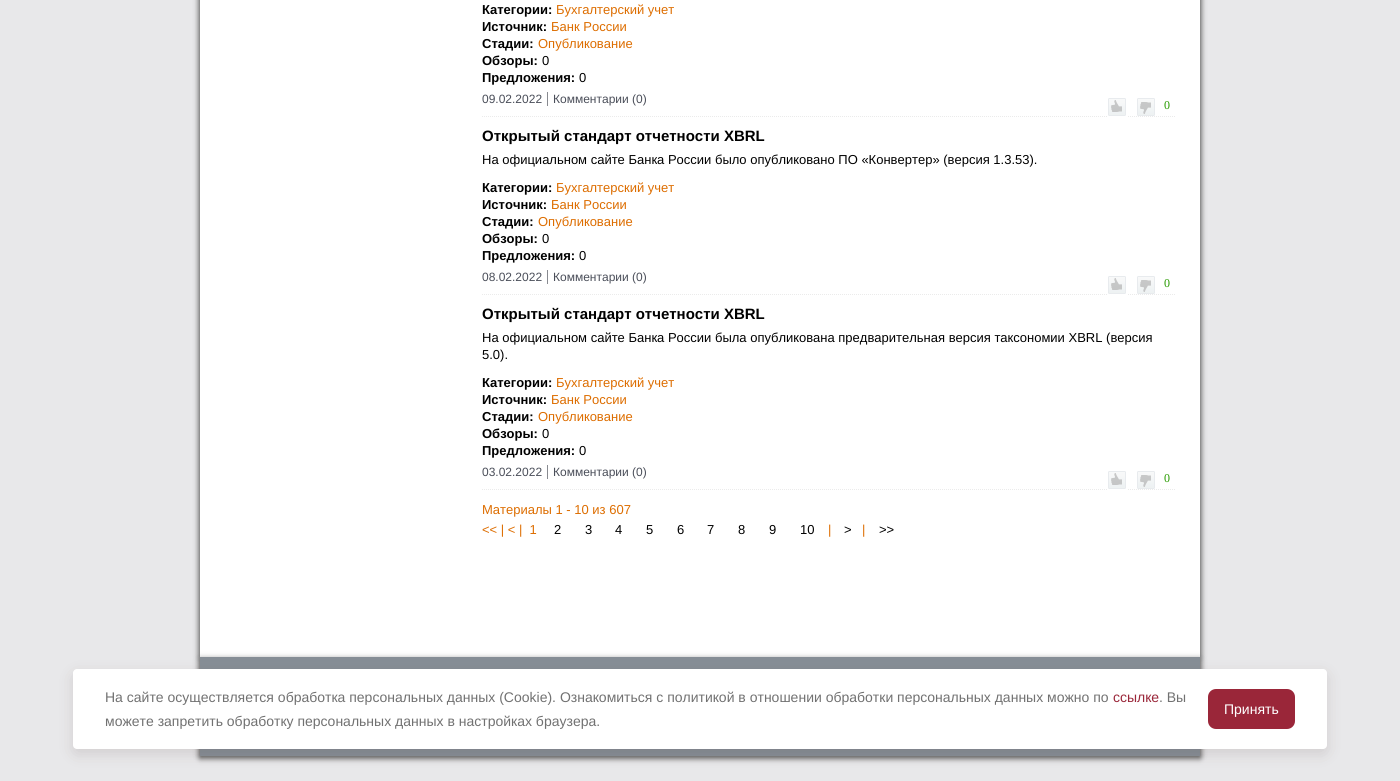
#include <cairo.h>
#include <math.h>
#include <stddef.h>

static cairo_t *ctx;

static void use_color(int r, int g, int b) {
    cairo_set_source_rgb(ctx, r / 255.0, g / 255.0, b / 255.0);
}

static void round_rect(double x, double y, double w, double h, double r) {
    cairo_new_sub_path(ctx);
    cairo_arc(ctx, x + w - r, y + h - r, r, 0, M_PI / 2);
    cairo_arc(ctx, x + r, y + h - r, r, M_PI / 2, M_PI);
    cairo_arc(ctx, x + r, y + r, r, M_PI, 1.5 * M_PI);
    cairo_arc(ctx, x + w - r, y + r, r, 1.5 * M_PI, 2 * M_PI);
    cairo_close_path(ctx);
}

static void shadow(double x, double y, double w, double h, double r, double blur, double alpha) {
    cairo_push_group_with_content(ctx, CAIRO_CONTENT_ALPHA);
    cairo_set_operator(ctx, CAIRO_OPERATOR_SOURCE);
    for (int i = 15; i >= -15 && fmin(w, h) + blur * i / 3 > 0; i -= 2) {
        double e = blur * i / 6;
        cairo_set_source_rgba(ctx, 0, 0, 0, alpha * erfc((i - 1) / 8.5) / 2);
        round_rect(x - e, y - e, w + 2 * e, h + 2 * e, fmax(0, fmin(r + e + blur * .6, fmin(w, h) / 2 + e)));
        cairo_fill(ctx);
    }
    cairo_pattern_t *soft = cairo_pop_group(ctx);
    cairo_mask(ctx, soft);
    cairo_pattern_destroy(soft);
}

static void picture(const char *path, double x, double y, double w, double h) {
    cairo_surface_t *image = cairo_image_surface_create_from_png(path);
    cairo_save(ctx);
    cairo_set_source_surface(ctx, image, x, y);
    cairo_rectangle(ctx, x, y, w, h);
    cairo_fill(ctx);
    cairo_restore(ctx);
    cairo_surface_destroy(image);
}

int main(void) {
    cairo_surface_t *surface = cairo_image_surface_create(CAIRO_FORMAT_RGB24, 1400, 781);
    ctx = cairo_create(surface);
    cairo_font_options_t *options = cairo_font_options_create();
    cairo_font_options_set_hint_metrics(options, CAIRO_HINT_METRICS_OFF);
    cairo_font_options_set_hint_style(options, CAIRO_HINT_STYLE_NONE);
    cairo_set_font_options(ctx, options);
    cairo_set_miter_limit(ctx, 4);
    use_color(232, 232, 234);
    cairo_paint(ctx);
    use_color(102, 102, 102);
    shadow(200, -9, 1000, 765, 0, 3, 1);
    shadow(200, -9, 1000, 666, 0, 3, 1);
    use_color(255, 255, 255);
    cairo_rectangle(ctx, 200, 0, 1000, 657);
    cairo_fill(ctx);
    cairo_new_path(ctx);
    cairo_move_to(ctx, 482, 116.5);
    cairo_line_to(ctx, 1175, 116.5);
    use_color(235, 235, 235);
    cairo_set_line_width(ctx, 1);
    cairo_set_dash(ctx, (double[]){1, 1}, 2, 0);
    cairo_stroke(ctx);
    cairo_select_font_face(ctx, "Liberation Sans", CAIRO_FONT_SLANT_NORMAL, CAIRO_FONT_WEIGHT_BOLD);
    cairo_set_font_size(ctx, 13);
    use_color(0, 0, 0);
    cairo_move_to(ctx, 482, 14);
    cairo_show_text(ctx, "Категории:");
    cairo_select_font_face(ctx, "Liberation Sans", CAIRO_FONT_SLANT_NORMAL, CAIRO_FONT_WEIGHT_NORMAL);
    use_color(221, 109, 0);
    cairo_move_to(ctx, 556, 14);
    cairo_show_text(ctx, "Бухгалтерский учет");
    cairo_select_font_face(ctx, "Liberation Sans", CAIRO_FONT_SLANT_NORMAL, CAIRO_FONT_WEIGHT_BOLD);
    use_color(0, 0, 0);
    cairo_move_to(ctx, 482, 31);
    cairo_show_text(ctx, "Источник:");
    cairo_select_font_face(ctx, "Liberation Sans", CAIRO_FONT_SLANT_NORMAL, CAIRO_FONT_WEIGHT_NORMAL);
    use_color(221, 109, 0);
    cairo_move_to(ctx, 551, 31);
    cairo_show_text(ctx, "Банк России");
    cairo_select_font_face(ctx, "Liberation Sans", CAIRO_FONT_SLANT_NORMAL, CAIRO_FONT_WEIGHT_BOLD);
    use_color(0, 0, 0);
    cairo_move_to(ctx, 482, 48);
    cairo_show_text(ctx, "Стадии:");
    cairo_select_font_face(ctx, "Liberation Sans", CAIRO_FONT_SLANT_NORMAL, CAIRO_FONT_WEIGHT_NORMAL);
    use_color(221, 109, 0);
    cairo_move_to(ctx, 538, 48);
    cairo_show_text(ctx, "Опубликование");
    cairo_select_font_face(ctx, "Liberation Sans", CAIRO_FONT_SLANT_NORMAL, CAIRO_FONT_WEIGHT_BOLD);
    use_color(0, 0, 0);
    cairo_move_to(ctx, 482, 65);
    cairo_show_text(ctx, "Обзоры:");
    cairo_select_font_face(ctx, "Liberation Sans", CAIRO_FONT_SLANT_NORMAL, CAIRO_FONT_WEIGHT_NORMAL);
    cairo_move_to(ctx, 542, 65);
    cairo_show_text(ctx, "0");
    cairo_select_font_face(ctx, "Liberation Sans", CAIRO_FONT_SLANT_NORMAL, CAIRO_FONT_WEIGHT_BOLD);
    cairo_move_to(ctx, 482, 82);
    cairo_show_text(ctx, "Предложения:");
    cairo_select_font_face(ctx, "Liberation Sans", CAIRO_FONT_SLANT_NORMAL, CAIRO_FONT_WEIGHT_NORMAL);
    cairo_move_to(ctx, 579, 82);
    cairo_show_text(ctx, "0");
    cairo_set_font_size(ctx, 12);
    use_color(74, 78, 89);
    cairo_move_to(ctx, 482, 103);
    cairo_show_text(ctx, "09.02.2022");
    use_color(136, 138, 144);
    cairo_rectangle(ctx, 547, 92, 1, 14);
    cairo_fill(ctx);
    use_color(74, 78, 89);
    cairo_move_to(ctx, 553, 103);
    cairo_show_text(ctx, "Комментарии (0)");
    picture("img1.png", 1108, 98, 19, 19);
    picture("img2.png", 1137, 98, 18, 18);
    cairo_select_font_face(ctx, "Liberation Serif", CAIRO_FONT_SLANT_NORMAL, CAIRO_FONT_WEIGHT_NORMAL);
    use_color(40, 155, 0);
    cairo_move_to(ctx, 1164, 109);
    cairo_show_text(ctx, "0");
    cairo_new_path(ctx);
    cairo_move_to(ctx, 482, 294.5);
    cairo_line_to(ctx, 1175, 294.5);
    use_color(235, 235, 235);
    cairo_stroke(ctx);
    cairo_select_font_face(ctx, "Liberation Sans", CAIRO_FONT_SLANT_NORMAL, CAIRO_FONT_WEIGHT_BOLD);
    cairo_set_font_size(ctx, 15);
    use_color(0, 0, 0);
    cairo_move_to(ctx, 482, 141);
    cairo_show_text(ctx, "Открытый стандарт отчетности XBRL");
    cairo_select_font_face(ctx, "Liberation Sans", CAIRO_FONT_SLANT_NORMAL, CAIRO_FONT_WEIGHT_NORMAL);
    cairo_set_font_size(ctx, 13);
    cairo_move_to(ctx, 482, 164);
    cairo_show_text(ctx, "На официальном сайте Банка России было опубликовано ПО «Конвертер» (версия 1.3.53).");
    cairo_select_font_face(ctx, "Liberation Sans", CAIRO_FONT_SLANT_NORMAL, CAIRO_FONT_WEIGHT_BOLD);
    cairo_move_to(ctx, 482, 192);
    cairo_show_text(ctx, "Категории:");
    cairo_select_font_face(ctx, "Liberation Sans", CAIRO_FONT_SLANT_NORMAL, CAIRO_FONT_WEIGHT_NORMAL);
    use_color(221, 109, 0);
    cairo_move_to(ctx, 556, 192);
    cairo_show_text(ctx, "Бухгалтерский учет");
    cairo_select_font_face(ctx, "Liberation Sans", CAIRO_FONT_SLANT_NORMAL, CAIRO_FONT_WEIGHT_BOLD);
    use_color(0, 0, 0);
    cairo_move_to(ctx, 482, 209);
    cairo_show_text(ctx, "Источник:");
    cairo_select_font_face(ctx, "Liberation Sans", CAIRO_FONT_SLANT_NORMAL, CAIRO_FONT_WEIGHT_NORMAL);
    use_color(221, 109, 0);
    cairo_move_to(ctx, 551, 209);
    cairo_show_text(ctx, "Банк России");
    cairo_select_font_face(ctx, "Liberation Sans", CAIRO_FONT_SLANT_NORMAL, CAIRO_FONT_WEIGHT_BOLD);
    use_color(0, 0, 0);
    cairo_move_to(ctx, 482, 226);
    cairo_show_text(ctx, "Стадии:");
    cairo_select_font_face(ctx, "Liberation Sans", CAIRO_FONT_SLANT_NORMAL, CAIRO_FONT_WEIGHT_NORMAL);
    use_color(221, 109, 0);
    cairo_move_to(ctx, 538, 226);
    cairo_show_text(ctx, "Опубликование");
    cairo_select_font_face(ctx, "Liberation Sans", CAIRO_FONT_SLANT_NORMAL, CAIRO_FONT_WEIGHT_BOLD);
    use_color(0, 0, 0);
    cairo_move_to(ctx, 482, 243);
    cairo_show_text(ctx, "Обзоры:");
    cairo_select_font_face(ctx, "Liberation Sans", CAIRO_FONT_SLANT_NORMAL, CAIRO_FONT_WEIGHT_NORMAL);
    cairo_move_to(ctx, 542, 243);
    cairo_show_text(ctx, "0");
    cairo_select_font_face(ctx, "Liberation Sans", CAIRO_FONT_SLANT_NORMAL, CAIRO_FONT_WEIGHT_BOLD);
    cairo_move_to(ctx, 482, 260);
    cairo_show_text(ctx, "Предложения:");
    cairo_select_font_face(ctx, "Liberation Sans", CAIRO_FONT_SLANT_NORMAL, CAIRO_FONT_WEIGHT_NORMAL);
    cairo_move_to(ctx, 579, 260);
    cairo_show_text(ctx, "0");
    cairo_set_font_size(ctx, 12);
    use_color(74, 78, 89);
    cairo_move_to(ctx, 482, 281);
    cairo_show_text(ctx, "08.02.2022");
    use_color(136, 138, 144);
    cairo_rectangle(ctx, 547, 270, 1, 14);
    cairo_fill(ctx);
    use_color(74, 78, 89);
    cairo_move_to(ctx, 553, 281);
    cairo_show_text(ctx, "Комментарии (0)");
    picture("img1.png", 1108, 276, 19, 19);
    picture("img2.png", 1137, 276, 18, 18);
    cairo_select_font_face(ctx, "Liberation Serif", CAIRO_FONT_SLANT_NORMAL, CAIRO_FONT_WEIGHT_NORMAL);
    use_color(40, 155, 0);
    cairo_move_to(ctx, 1164, 287);
    cairo_show_text(ctx, "0");
    cairo_new_path(ctx);
    cairo_move_to(ctx, 482, 489.5);
    cairo_line_to(ctx, 1175, 489.5);
    use_color(235, 235, 235);
    cairo_stroke(ctx);
    cairo_select_font_face(ctx, "Liberation Sans", CAIRO_FONT_SLANT_NORMAL, CAIRO_FONT_WEIGHT_BOLD);
    cairo_set_font_size(ctx, 15);
    use_color(0, 0, 0);
    cairo_move_to(ctx, 482, 319);
    cairo_show_text(ctx, "Открытый стандарт отчетности XBRL");
    cairo_select_font_face(ctx, "Liberation Sans", CAIRO_FONT_SLANT_NORMAL, CAIRO_FONT_WEIGHT_NORMAL);
    cairo_set_font_size(ctx, 13);
    cairo_move_to(ctx, 482, 342);
    cairo_show_text(ctx, "На официальном сайте Банка России была опубликована предварительная версия таксономии XBRL (версия");
    cairo_move_to(ctx, 482, 359);
    cairo_show_text(ctx, "5.0).");
    cairo_select_font_face(ctx, "Liberation Sans", CAIRO_FONT_SLANT_NORMAL, CAIRO_FONT_WEIGHT_BOLD);
    cairo_move_to(ctx, 482, 387);
    cairo_show_text(ctx, "Категории:");
    cairo_select_font_face(ctx, "Liberation Sans", CAIRO_FONT_SLANT_NORMAL, CAIRO_FONT_WEIGHT_NORMAL);
    use_color(221, 109, 0);
    cairo_move_to(ctx, 556, 387);
    cairo_show_text(ctx, "Бухгалтерский учет");
    cairo_select_font_face(ctx, "Liberation Sans", CAIRO_FONT_SLANT_NORMAL, CAIRO_FONT_WEIGHT_BOLD);
    use_color(0, 0, 0);
    cairo_move_to(ctx, 482, 404);
    cairo_show_text(ctx, "Источник:");
    cairo_select_font_face(ctx, "Liberation Sans", CAIRO_FONT_SLANT_NORMAL, CAIRO_FONT_WEIGHT_NORMAL);
    use_color(221, 109, 0);
    cairo_move_to(ctx, 551, 404);
    cairo_show_text(ctx, "Банк России");
    cairo_select_font_face(ctx, "Liberation Sans", CAIRO_FONT_SLANT_NORMAL, CAIRO_FONT_WEIGHT_BOLD);
    use_color(0, 0, 0);
    cairo_move_to(ctx, 482, 421);
    cairo_show_text(ctx, "Стадии:");
    cairo_select_font_face(ctx, "Liberation Sans", CAIRO_FONT_SLANT_NORMAL, CAIRO_FONT_WEIGHT_NORMAL);
    use_color(221, 109, 0);
    cairo_move_to(ctx, 538, 421);
    cairo_show_text(ctx, "Опубликование");
    cairo_select_font_face(ctx, "Liberation Sans", CAIRO_FONT_SLANT_NORMAL, CAIRO_FONT_WEIGHT_BOLD);
    use_color(0, 0, 0);
    cairo_move_to(ctx, 482, 438);
    cairo_show_text(ctx, "Обзоры:");
    cairo_select_font_face(ctx, "Liberation Sans", CAIRO_FONT_SLANT_NORMAL, CAIRO_FONT_WEIGHT_NORMAL);
    cairo_move_to(ctx, 542, 438);
    cairo_show_text(ctx, "0");
    cairo_select_font_face(ctx, "Liberation Sans", CAIRO_FONT_SLANT_NORMAL, CAIRO_FONT_WEIGHT_BOLD);
    cairo_move_to(ctx, 482, 455);
    cairo_show_text(ctx, "Предложения:");
    cairo_select_font_face(ctx, "Liberation Sans", CAIRO_FONT_SLANT_NORMAL, CAIRO_FONT_WEIGHT_NORMAL);
    cairo_move_to(ctx, 579, 455);
    cairo_show_text(ctx, "0");
    cairo_set_font_size(ctx, 12);
    use_color(74, 78, 89);
    cairo_move_to(ctx, 482, 476);
    cairo_show_text(ctx, "03.02.2022");
    use_color(136, 138, 144);
    cairo_rectangle(ctx, 547, 465, 1, 14);
    cairo_fill(ctx);
    use_color(74, 78, 89);
    cairo_move_to(ctx, 553, 476);
    cairo_show_text(ctx, "Комментарии (0)");
    picture("img1.png", 1108, 471, 19, 19);
    picture("img2.png", 1137, 471, 18, 18);
    cairo_select_font_face(ctx, "Liberation Serif", CAIRO_FONT_SLANT_NORMAL, CAIRO_FONT_WEIGHT_NORMAL);
    use_color(40, 155, 0);
    cairo_move_to(ctx, 1164, 482);
    cairo_show_text(ctx, "0");
    cairo_select_font_face(ctx, "Liberation Sans", CAIRO_FONT_SLANT_NORMAL, CAIRO_FONT_WEIGHT_NORMAL);
    cairo_set_font_size(ctx, 13);
    use_color(221, 109, 0);
    cairo_move_to(ctx, 482, 514);
    cairo_show_text(ctx, "Материалы 1 - 10 из 607");
    cairo_move_to(ctx, 482, 534);
    cairo_show_text(ctx, "<< | < |  1");
    use_color(0, 0, 0);
    cairo_move_to(ctx, 554, 534);
    cairo_show_text(ctx, "2");
    cairo_move_to(ctx, 585, 534);
    cairo_show_text(ctx, "3");
    cairo_move_to(ctx, 615, 534);
    cairo_show_text(ctx, "4");
    cairo_move_to(ctx, 646, 534);
    cairo_show_text(ctx, "5");
    cairo_move_to(ctx, 677, 534);
    cairo_show_text(ctx, "6");
    cairo_move_to(ctx, 707, 534);
    cairo_show_text(ctx, "7");
    cairo_move_to(ctx, 738, 534);
    cairo_show_text(ctx, "8");
    cairo_move_to(ctx, 769, 534);
    cairo_show_text(ctx, "9");
    cairo_move_to(ctx, 800, 534);
    cairo_show_text(ctx, "10");
    use_color(221, 109, 0);
    cairo_move_to(ctx, 828, 534);
    cairo_show_text(ctx, "|");
    use_color(0, 0, 0);
    cairo_move_to(ctx, 844, 534);
    cairo_show_text(ctx, ">");
    use_color(221, 109, 0);
    cairo_move_to(ctx, 862, 534);
    cairo_show_text(ctx, "|");
    use_color(0, 0, 0);
    cairo_move_to(ctx, 879, 534);
    cairo_show_text(ctx, ">>");
    use_color(102, 102, 102);
    shadow(200, 659, 1000, 99, 0, 3, 1);
    use_color(134, 142, 150);
    cairo_rectangle(ctx, 200, 657, 1000, 99);
    cairo_fill(ctx);
    use_color(79, 57, 52);
    shadow(73, 674, 1254, 80, 4, 7.5, 0.15);
    use_color(255, 255, 255);
    round_rect(73, 669, 1254, 80, 4);
    cairo_fill(ctx);
    cairo_set_font_size(ctx, 14);
    use_color(113, 113, 113);
    cairo_move_to(ctx, 105, 702);
    cairo_show_text(ctx, "На сайте осуществляется обработка персональных данных (Cookie). Ознакомиться с политикой в отношении обработки персональных данных можно по");
    use_color(154, 38, 57);
    cairo_move_to(ctx, 1113, 702);
    cairo_show_text(ctx, "ссылке");
    use_color(113, 113, 113);
    cairo_move_to(ctx, 1159, 702);
    cairo_show_text(ctx, ". Вы");
    cairo_move_to(ctx, 105, 726);
    cairo_show_text(ctx, "можете запретить обработку персональных данных в настройках браузера.");
    use_color(154, 38, 57);
    round_rect(1208, 689, 87, 40, 8);
    cairo_fill(ctx);
    use_color(255, 255, 255);
    cairo_move_to(ctx, 1224, 714);
    cairo_show_text(ctx, "Принять");
    cairo_surface_write_to_png(surface, "result.png");
    cairo_font_options_destroy(options);
    cairo_destroy(ctx);
    cairo_surface_destroy(surface);
    return 0;
}
